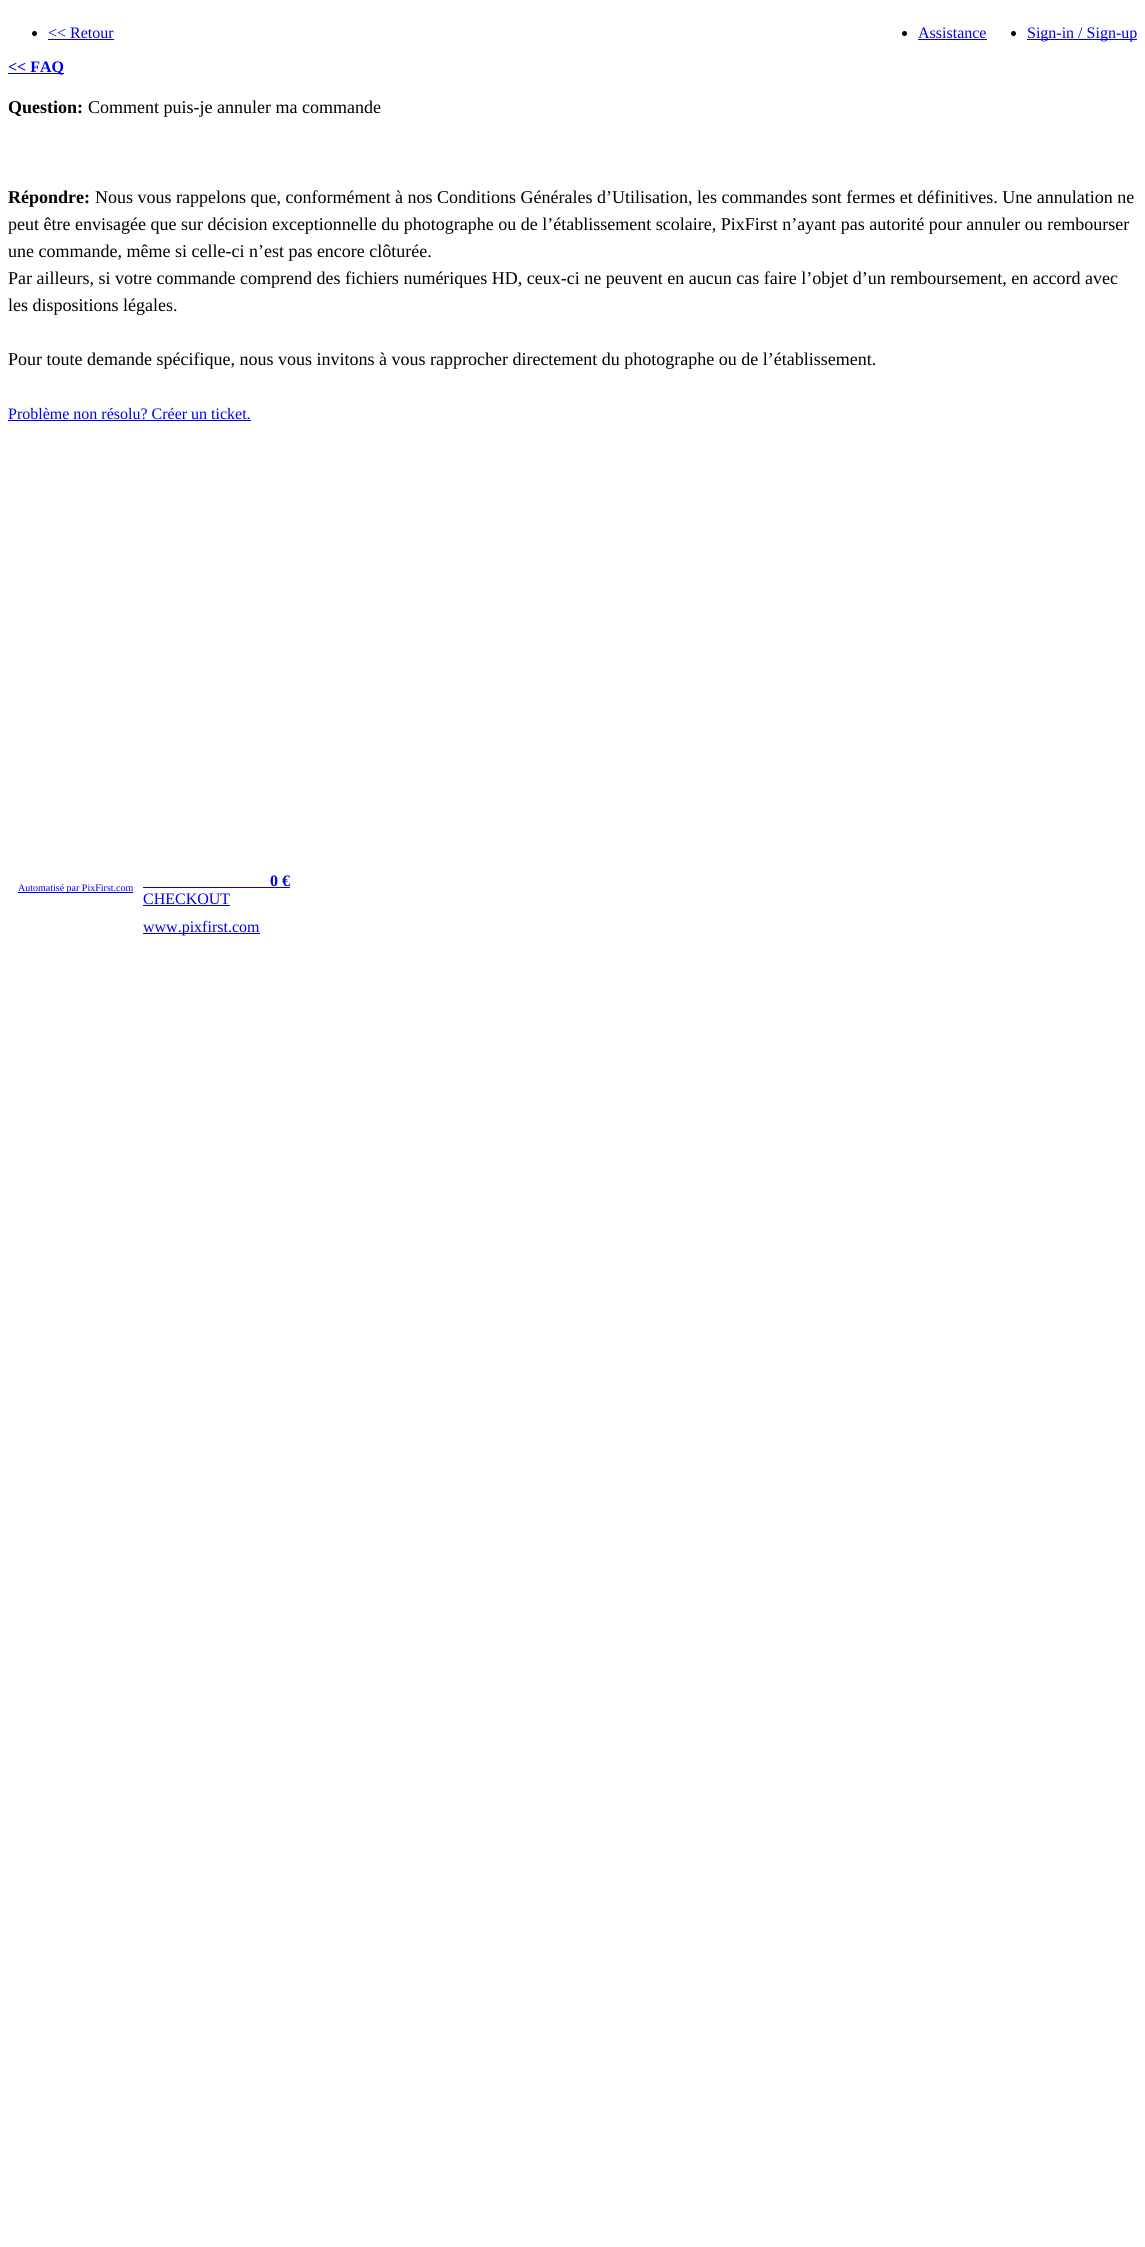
#include <cairo.h>
#include <math.h>
#include <stddef.h>

static cairo_t *ctx;

static void use_color(int r, int g, int b) {
    cairo_set_source_rgb(ctx, r / 255.0, g / 255.0, b / 255.0);
}

int main(void) {
    cairo_surface_t *surface = cairo_image_surface_create(CAIRO_FORMAT_RGB24, 1145, 2247);
    ctx = cairo_create(surface);
    cairo_font_options_t *options = cairo_font_options_create();
    cairo_font_options_set_hint_metrics(options, CAIRO_HINT_METRICS_OFF);
    cairo_font_options_set_hint_style(options, CAIRO_HINT_STYLE_NONE);
    cairo_set_font_options(ctx, options);
    cairo_set_miter_limit(ctx, 4);
    use_color(255, 255, 255);
    cairo_paint(ctx);
    use_color(0, 0, 0);
    cairo_arc(ctx, 34.5, 33.5, 2.5, 0, 2 * M_PI);
    cairo_fill(ctx);
    cairo_select_font_face(ctx, "Liberation Serif", CAIRO_FONT_SLANT_NORMAL, CAIRO_FONT_WEIGHT_NORMAL);
    cairo_set_font_size(ctx, 16);
    use_color(0, 0, 238);
    cairo_move_to(ctx, 48, 38);
    cairo_show_text(ctx, "<< Retour");
    cairo_rectangle(ctx, 48, 39, 66, 1);
    cairo_fill(ctx);
    use_color(0, 0, 0);
    cairo_arc(ctx, 904.5, 33.5, 2.5, 0, 2 * M_PI);
    cairo_fill(ctx);
    use_color(0, 0, 238);
    cairo_move_to(ctx, 918, 38);
    cairo_show_text(ctx, "Assistance");
    cairo_rectangle(ctx, 918, 39, 69, 1);
    cairo_fill(ctx);
    use_color(0, 0, 0);
    cairo_arc(ctx, 1013.5, 33.5, 2.5, 0, 2 * M_PI);
    cairo_fill(ctx);
    use_color(0, 0, 238);
    cairo_rectangle(ctx, 1027, 39, 110, 1);
    cairo_fill(ctx);
    cairo_move_to(ctx, 1027, 38);
    cairo_show_text(ctx, "Sign-in / Sign-up");
    cairo_rectangle(ctx, 8, 73, 56, 1);
    cairo_fill(ctx);
    cairo_select_font_face(ctx, "Liberation Serif", CAIRO_FONT_SLANT_NORMAL, CAIRO_FONT_WEIGHT_BOLD);
    cairo_move_to(ctx, 8, 72);
    cairo_show_text(ctx, "<< FAQ");
    cairo_set_font_size(ctx, 18);
    use_color(0, 0, 0);
    cairo_move_to(ctx, 8, 113);
    cairo_show_text(ctx, "Question:");
    cairo_select_font_face(ctx, "Liberation Serif", CAIRO_FONT_SLANT_NORMAL, CAIRO_FONT_WEIGHT_NORMAL);
    cairo_move_to(ctx, 88, 113);
    cairo_show_text(ctx, "Comment puis-je annuler ma commande");
    cairo_select_font_face(ctx, "Liberation Serif", CAIRO_FONT_SLANT_NORMAL, CAIRO_FONT_WEIGHT_BOLD);
    cairo_move_to(ctx, 8, 203);
    cairo_show_text(ctx, "Répondre:");
    cairo_select_font_face(ctx, "Liberation Serif", CAIRO_FONT_SLANT_NORMAL, CAIRO_FONT_WEIGHT_NORMAL);
    cairo_move_to(ctx, 95, 203);
    cairo_show_text(ctx, "Nous vous rappelons que, conformément à nos Conditions Générales d’Utilisation, les commandes sont fermes et définitives. Une annulation ne");
    cairo_move_to(ctx, 8, 230);
    cairo_show_text(ctx, "peut être envisagée que sur décision exceptionnelle du photographe ou de l’établissement scolaire, PixFirst n’ayant pas autorité pour annuler ou rembourser");
    cairo_move_to(ctx, 8, 257);
    cairo_show_text(ctx, "une commande, même si celle-ci n’est pas encore clôturée.");
    cairo_move_to(ctx, 8, 284);
    cairo_show_text(ctx, "Par ailleurs, si votre commande comprend des fichiers numériques HD, ceux-ci ne peuvent en aucun cas faire l’objet d’un remboursement, en accord avec");
    cairo_move_to(ctx, 8, 311);
    cairo_show_text(ctx, "les dispositions légales.");
    cairo_move_to(ctx, 8, 365);
    cairo_show_text(ctx, "Pour toute demande spécifique, nous vous invitons à vous rapprocher directement du photographe ou de l’établissement.");
    cairo_set_font_size(ctx, 16);
    use_color(0, 0, 238);
    cairo_move_to(ctx, 8, 419);
    cairo_show_text(ctx, "Problème non résolu? Créer un ticket.");
    cairo_rectangle(ctx, 8, 420, 243, 1);
    cairo_fill(ctx);
    cairo_rectangle(ctx, 18, 892, 115, 1);
    cairo_fill(ctx);
    cairo_set_font_size(ctx, 10);
    cairo_move_to(ctx, 18, 891);
    cairo_show_text(ctx, "Automatisé par PixFirst.com");
    cairo_select_font_face(ctx, "Liberation Serif", CAIRO_FONT_SLANT_NORMAL, CAIRO_FONT_WEIGHT_BOLD);
    cairo_set_font_size(ctx, 16);
    cairo_move_to(ctx, 270, 886);
    cairo_show_text(ctx, "0 €");
    cairo_rectangle(ctx, 143, 887, 147, 1);
    cairo_fill(ctx);
    cairo_select_font_face(ctx, "Liberation Serif", CAIRO_FONT_SLANT_NORMAL, CAIRO_FONT_WEIGHT_NORMAL);
    cairo_move_to(ctx, 143, 904);
    cairo_show_text(ctx, "CHECKOUT");
    cairo_rectangle(ctx, 143, 905, 87, 1);
    cairo_fill(ctx);
    cairo_rectangle(ctx, 143, 933, 117, 1);
    cairo_fill(ctx);
    cairo_move_to(ctx, 143, 932);
    cairo_show_text(ctx, "www.pixfirst.com");
    cairo_surface_write_to_png(surface, "result.png");
    cairo_font_options_destroy(options);
    cairo_destroy(ctx);
    cairo_surface_destroy(surface);
    return 0;
}
